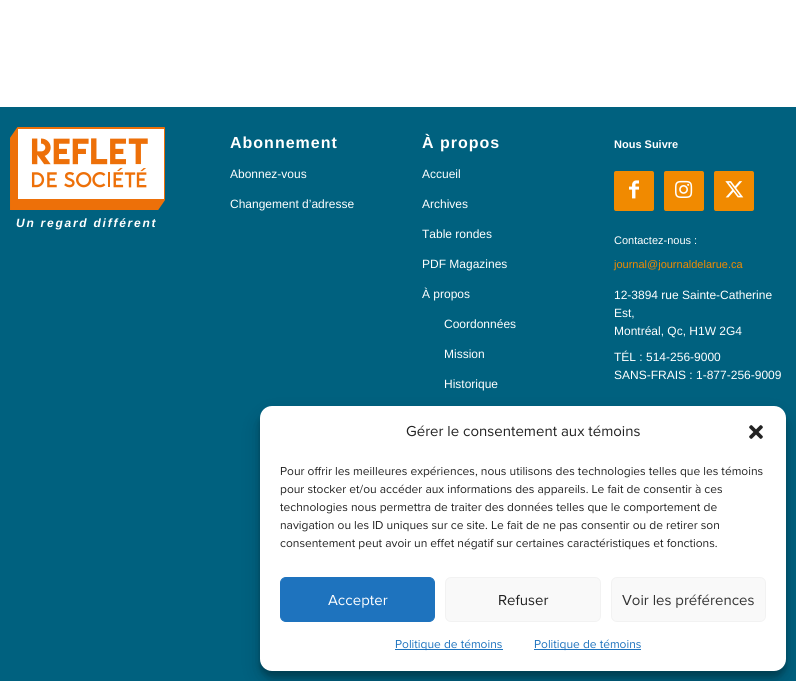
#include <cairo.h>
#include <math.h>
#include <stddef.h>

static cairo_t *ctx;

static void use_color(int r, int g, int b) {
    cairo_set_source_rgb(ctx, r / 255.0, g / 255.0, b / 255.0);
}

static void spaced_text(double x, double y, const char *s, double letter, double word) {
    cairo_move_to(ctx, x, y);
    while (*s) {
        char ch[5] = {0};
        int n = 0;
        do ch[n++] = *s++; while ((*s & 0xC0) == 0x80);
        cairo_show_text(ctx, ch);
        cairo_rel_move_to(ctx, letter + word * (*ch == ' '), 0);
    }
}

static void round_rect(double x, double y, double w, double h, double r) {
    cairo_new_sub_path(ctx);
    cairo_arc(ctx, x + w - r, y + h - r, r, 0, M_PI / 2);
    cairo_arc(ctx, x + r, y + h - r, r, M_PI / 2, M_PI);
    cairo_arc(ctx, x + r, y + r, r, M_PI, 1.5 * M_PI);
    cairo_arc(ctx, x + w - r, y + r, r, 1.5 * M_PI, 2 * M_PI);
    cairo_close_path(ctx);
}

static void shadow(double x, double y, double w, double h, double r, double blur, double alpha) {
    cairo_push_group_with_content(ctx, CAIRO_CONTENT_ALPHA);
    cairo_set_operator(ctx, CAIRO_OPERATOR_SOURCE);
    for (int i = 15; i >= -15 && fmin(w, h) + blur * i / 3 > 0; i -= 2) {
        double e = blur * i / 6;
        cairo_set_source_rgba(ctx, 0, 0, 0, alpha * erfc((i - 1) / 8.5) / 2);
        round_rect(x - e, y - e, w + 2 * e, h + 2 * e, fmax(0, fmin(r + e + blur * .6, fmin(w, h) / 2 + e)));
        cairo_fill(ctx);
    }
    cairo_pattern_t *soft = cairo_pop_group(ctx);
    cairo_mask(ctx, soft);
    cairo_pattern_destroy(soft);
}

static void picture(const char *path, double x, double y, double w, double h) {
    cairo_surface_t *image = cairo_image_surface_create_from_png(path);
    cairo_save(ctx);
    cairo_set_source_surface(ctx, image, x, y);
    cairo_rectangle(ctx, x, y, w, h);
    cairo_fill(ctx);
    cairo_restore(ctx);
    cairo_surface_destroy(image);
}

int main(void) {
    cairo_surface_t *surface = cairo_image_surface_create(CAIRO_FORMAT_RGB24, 796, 681);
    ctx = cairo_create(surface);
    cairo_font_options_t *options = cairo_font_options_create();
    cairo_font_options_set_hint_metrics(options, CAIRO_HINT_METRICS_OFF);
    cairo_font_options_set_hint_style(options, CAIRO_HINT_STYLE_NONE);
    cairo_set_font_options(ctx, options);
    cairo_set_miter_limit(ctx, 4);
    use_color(255, 255, 255);
    cairo_paint(ctx);
    use_color(0, 97, 127);
    cairo_rectangle(ctx, 0, 107, 796, 574);
    cairo_fill(ctx);
    picture("img1.png", 10, 127, 155, 83);
    cairo_select_font_face(ctx, "Liberation Sans", CAIRO_FONT_SLANT_ITALIC, CAIRO_FONT_WEIGHT_BOLD);
    cairo_set_font_size(ctx, 12);
    use_color(255, 255, 255);
    spaced_text(16, 227, "Un regard différent", 1.75, 0);
    cairo_select_font_face(ctx, "Liberation Sans", CAIRO_FONT_SLANT_NORMAL, CAIRO_FONT_WEIGHT_BOLD);
    cairo_set_font_size(ctx, 16);
    spaced_text(230, 148, "Abonnement", 1, 0);
    cairo_select_font_face(ctx, "Liberation Sans", CAIRO_FONT_SLANT_NORMAL, CAIRO_FONT_WEIGHT_NORMAL);
    cairo_set_font_size(ctx, 12);
    cairo_move_to(ctx, 230, 178);
    cairo_show_text(ctx, "Abonnez-vous");
    cairo_move_to(ctx, 230, 208);
    cairo_show_text(ctx, "Changement d’adresse");
    cairo_select_font_face(ctx, "Liberation Sans", CAIRO_FONT_SLANT_NORMAL, CAIRO_FONT_WEIGHT_BOLD);
    cairo_set_font_size(ctx, 16);
    spaced_text(422, 148, "À propos", 1, 0);
    cairo_select_font_face(ctx, "Liberation Sans", CAIRO_FONT_SLANT_NORMAL, CAIRO_FONT_WEIGHT_NORMAL);
    cairo_set_font_size(ctx, 12);
    cairo_move_to(ctx, 422, 178);
    cairo_show_text(ctx, "Accueil");
    cairo_move_to(ctx, 422, 208);
    cairo_show_text(ctx, "Archives");
    cairo_move_to(ctx, 422, 238);
    cairo_show_text(ctx, "Table rondes");
    cairo_move_to(ctx, 422, 268);
    cairo_show_text(ctx, "PDF Magazines");
    cairo_move_to(ctx, 422, 298);
    cairo_show_text(ctx, "À propos");
    cairo_move_to(ctx, 444, 328);
    cairo_show_text(ctx, "Coordonnées");
    cairo_move_to(ctx, 444, 358);
    cairo_show_text(ctx, "Mission");
    cairo_move_to(ctx, 444, 388);
    cairo_show_text(ctx, "Historique");
    cairo_select_font_face(ctx, "Liberation Sans", CAIRO_FONT_SLANT_NORMAL, CAIRO_FONT_WEIGHT_BOLD);
    cairo_set_font_size(ctx, 11);
    cairo_move_to(ctx, 614, 148);
    cairo_show_text(ctx, "Nous Suivre");
    use_color(241, 138, 0);
    round_rect(614, 171, 40, 40, 2);
    cairo_fill(ctx);
    picture("img2.png", 629, 180, 10, 19);
    round_rect(664, 171, 40, 40, 2);
    cairo_fill(ctx);
    picture("img3.png", 675, 180, 18, 18);
    round_rect(714, 171, 40, 40, 2);
    cairo_fill(ctx);
    picture("img4.png", 725, 181, 19, 17);
    cairo_select_font_face(ctx, "Liberation Sans", CAIRO_FONT_SLANT_NORMAL, CAIRO_FONT_WEIGHT_NORMAL);
    use_color(255, 255, 255);
    cairo_move_to(ctx, 614, 244);
    cairo_show_text(ctx, "Contactez-nous :");
    use_color(241, 138, 0);
    cairo_move_to(ctx, 614, 268);
    cairo_show_text(ctx, "journal@journaldelarue.ca");
    cairo_set_font_size(ctx, 12);
    use_color(255, 255, 255);
    cairo_move_to(ctx, 614, 299);
    cairo_show_text(ctx, "12-3894 rue Sainte-Catherine");
    cairo_move_to(ctx, 614, 317);
    cairo_show_text(ctx, "Est,");
    cairo_move_to(ctx, 614, 335);
    cairo_show_text(ctx, "Montréal, Qc, H1W 2G4");
    cairo_move_to(ctx, 614, 361);
    cairo_show_text(ctx, "TÉL : 514-256-9000");
    cairo_move_to(ctx, 614, 379);
    cairo_show_text(ctx, "SANS-FRAIS : 1-877-256-9009");
    use_color(0, 0, 0);
    shadow(260, 412, 526, 265, 12, 3, 0.23);
    shadow(260, 416, 526, 265, 12, 10, 0.19);
    use_color(255, 255, 255);
    round_rect(260, 406, 526, 265, 12);
    cairo_fill(ctx);
    cairo_select_font_face(ctx, "Proxima Nova", CAIRO_FONT_SLANT_NORMAL, CAIRO_FONT_WEIGHT_NORMAL);
    cairo_set_font_size(ctx, 15);
    use_color(34, 34, 34);
    cairo_move_to(ctx, 406, 436);
    cairo_show_text(ctx, "Gérer le consentement aux témoins");
    picture("img5.png", 749, 425, 14, 14);
    cairo_set_font_size(ctx, 12);
    cairo_move_to(ctx, 280, 475);
    cairo_show_text(ctx, "Pour offrir les meilleures expériences, nous utilisons des technologies telles que les témoins");
    cairo_move_to(ctx, 280, 493);
    cairo_show_text(ctx, "pour stocker et/ou accéder aux informations des appareils. Le fait de consentir à ces");
    cairo_move_to(ctx, 280, 511);
    cairo_show_text(ctx, "technologies nous permettra de traiter des données telles que le comportement de");
    cairo_move_to(ctx, 280, 529);
    cairo_show_text(ctx, "navigation ou les ID uniques sur ce site. Le fait de ne pas consentir ou de retirer son");
    cairo_move_to(ctx, 280, 547);
    cairo_show_text(ctx, "consentement peut avoir un effet négatif sur certaines caractéristiques et fonctions.");
    use_color(30, 115, 190);
    round_rect(280.5, 577.5, 154, 44, 5.5);
    cairo_fill_preserve(ctx);
    cairo_set_line_width(ctx, 1);
    cairo_stroke(ctx);
    cairo_set_font_size(ctx, 15);
    use_color(255, 255, 255);
    cairo_move_to(ctx, 328, 605);
    cairo_show_text(ctx, "Accepter");
    use_color(249, 249, 249);
    round_rect(445.5, 577.5, 155, 44, 5.5);
    cairo_fill_preserve(ctx);
    use_color(242, 242, 242);
    cairo_stroke(ctx);
    use_color(34, 34, 34);
    cairo_move_to(ctx, 498, 605);
    cairo_show_text(ctx, "Refuser");
    use_color(249, 249, 249);
    round_rect(611.5, 577.5, 154, 44, 5.5);
    cairo_fill_preserve(ctx);
    use_color(242, 242, 242);
    cairo_stroke(ctx);
    use_color(51, 51, 51);
    cairo_move_to(ctx, 622, 605);
    cairo_show_text(ctx, "Voir les préférences");
    use_color(30, 115, 190);
    cairo_rectangle(ctx, 395, 649, 108, 1);
    cairo_fill(ctx);
    cairo_set_font_size(ctx, 12);
    cairo_move_to(ctx, 395, 648);
    cairo_show_text(ctx, "Politique de témoins");
    cairo_rectangle(ctx, 534, 649, 107, 1);
    cairo_fill(ctx);
    cairo_move_to(ctx, 534, 648);
    cairo_show_text(ctx, "Politique de témoins");
    cairo_surface_write_to_png(surface, "result.png");
    cairo_font_options_destroy(options);
    cairo_destroy(ctx);
    cairo_surface_destroy(surface);
    return 0;
}
